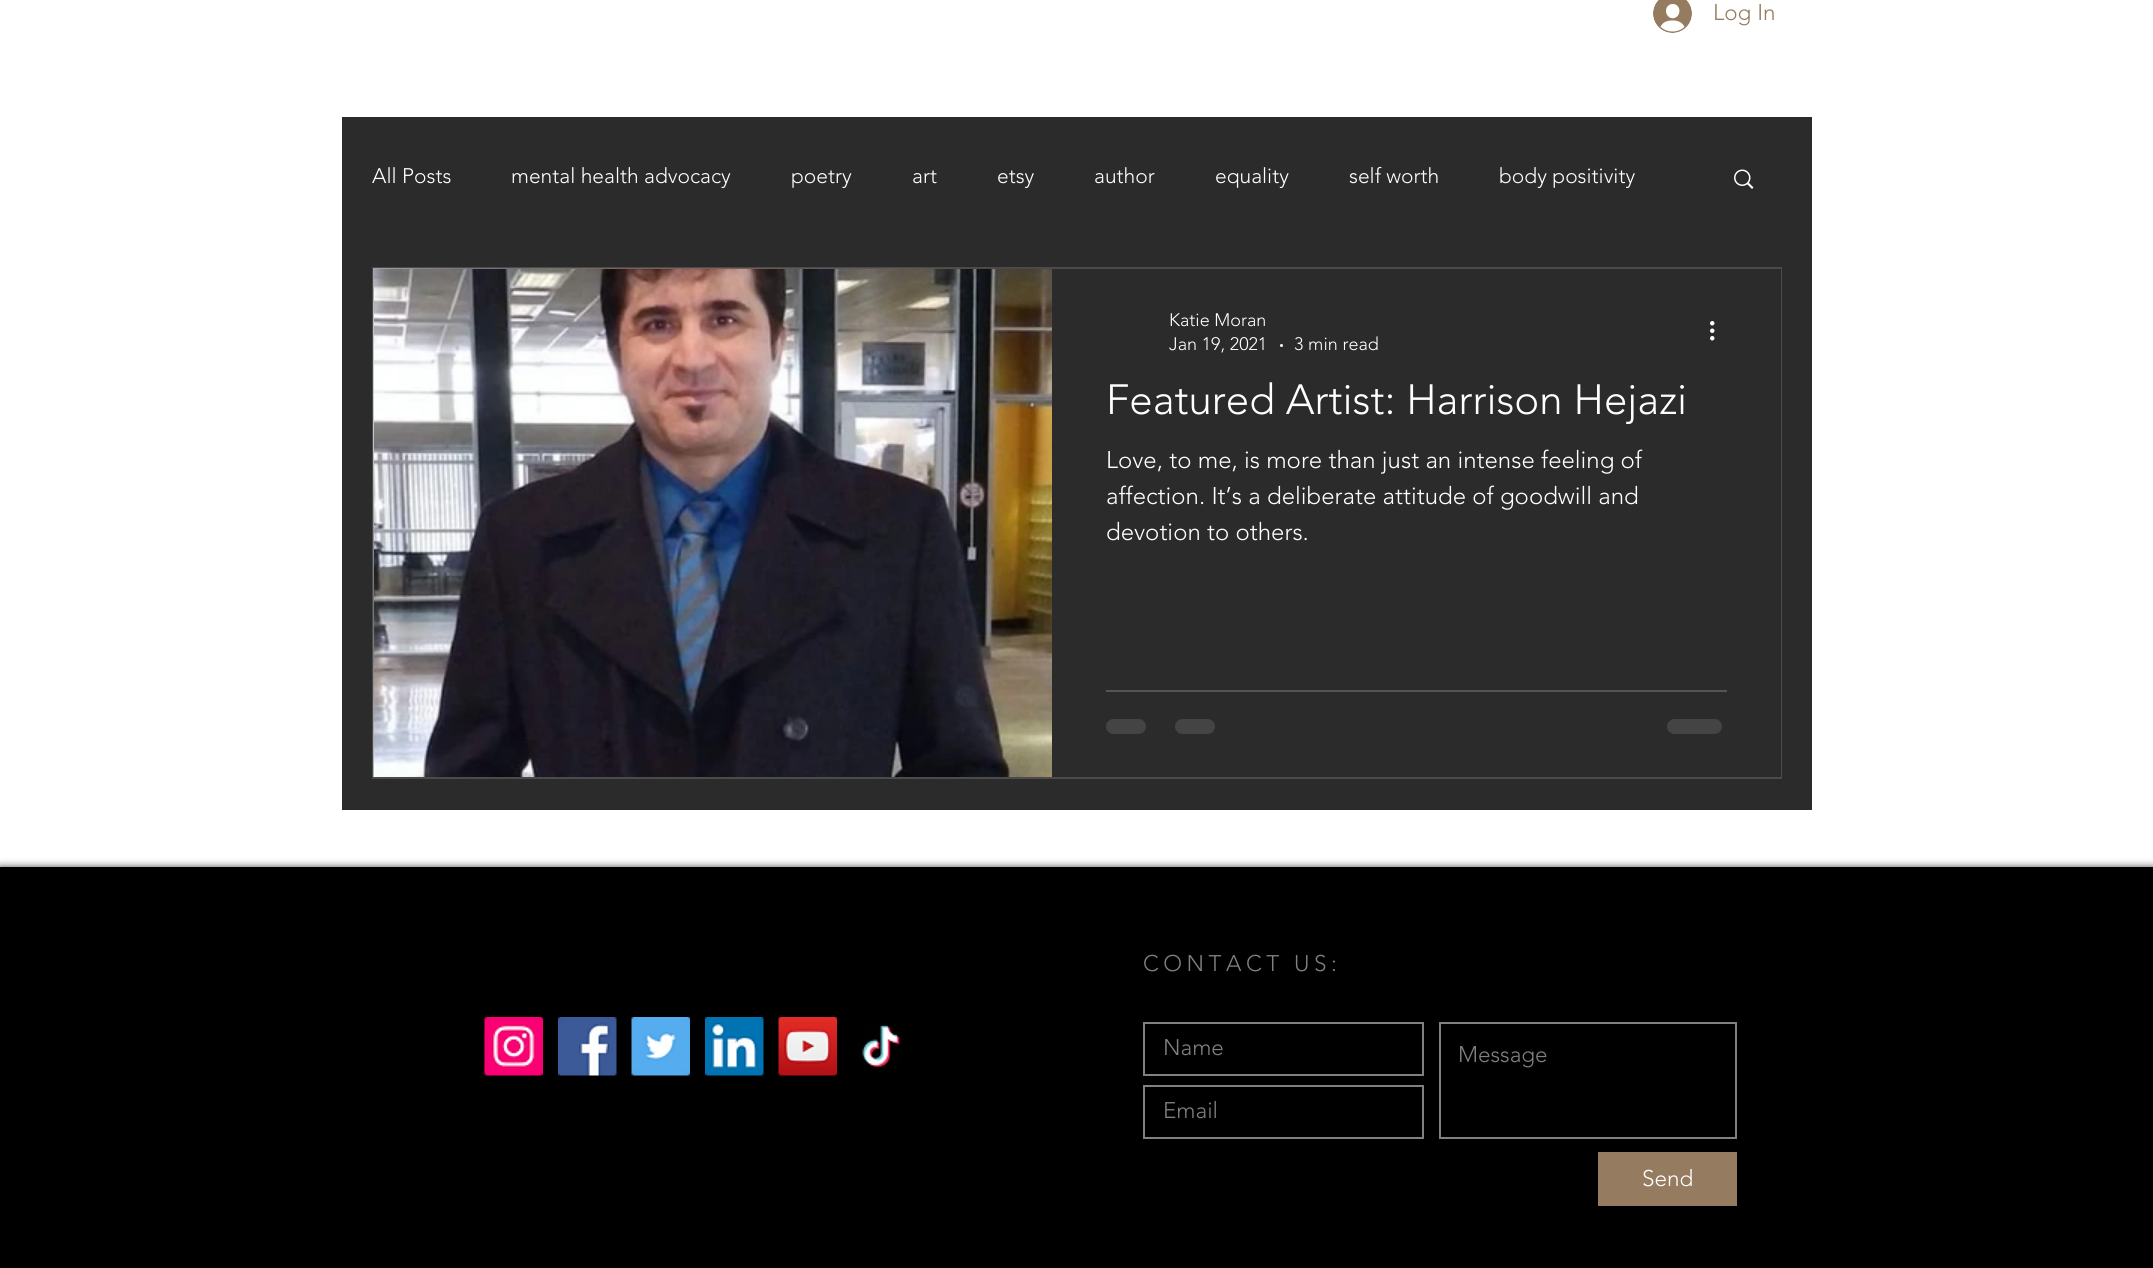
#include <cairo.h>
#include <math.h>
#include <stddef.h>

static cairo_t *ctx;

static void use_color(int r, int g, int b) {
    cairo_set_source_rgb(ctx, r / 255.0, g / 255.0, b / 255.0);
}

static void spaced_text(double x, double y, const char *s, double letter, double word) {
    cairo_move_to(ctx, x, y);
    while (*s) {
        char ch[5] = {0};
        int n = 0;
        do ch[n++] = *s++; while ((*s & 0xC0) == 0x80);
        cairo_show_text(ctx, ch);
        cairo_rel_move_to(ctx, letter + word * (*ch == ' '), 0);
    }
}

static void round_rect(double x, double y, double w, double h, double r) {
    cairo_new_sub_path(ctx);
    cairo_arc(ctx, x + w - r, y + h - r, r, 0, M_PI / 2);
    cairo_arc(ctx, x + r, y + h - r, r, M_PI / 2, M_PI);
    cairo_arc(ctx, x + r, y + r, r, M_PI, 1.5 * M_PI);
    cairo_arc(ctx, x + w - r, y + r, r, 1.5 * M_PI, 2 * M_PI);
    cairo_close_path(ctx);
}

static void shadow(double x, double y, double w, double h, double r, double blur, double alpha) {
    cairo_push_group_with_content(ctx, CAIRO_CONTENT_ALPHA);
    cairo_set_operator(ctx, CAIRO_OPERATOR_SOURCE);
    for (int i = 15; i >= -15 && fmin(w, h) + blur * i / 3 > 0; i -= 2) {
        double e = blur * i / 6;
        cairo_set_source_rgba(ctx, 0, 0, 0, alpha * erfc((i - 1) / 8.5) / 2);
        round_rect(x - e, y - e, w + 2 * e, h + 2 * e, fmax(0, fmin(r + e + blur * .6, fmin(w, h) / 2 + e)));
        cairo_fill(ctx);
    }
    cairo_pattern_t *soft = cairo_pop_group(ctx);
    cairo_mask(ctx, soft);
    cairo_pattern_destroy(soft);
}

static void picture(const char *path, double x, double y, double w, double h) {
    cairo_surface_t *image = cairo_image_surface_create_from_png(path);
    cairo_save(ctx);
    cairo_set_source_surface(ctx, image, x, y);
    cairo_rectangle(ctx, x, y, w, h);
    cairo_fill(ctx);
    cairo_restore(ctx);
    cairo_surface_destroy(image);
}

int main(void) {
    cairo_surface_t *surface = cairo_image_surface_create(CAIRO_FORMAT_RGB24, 2153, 1268);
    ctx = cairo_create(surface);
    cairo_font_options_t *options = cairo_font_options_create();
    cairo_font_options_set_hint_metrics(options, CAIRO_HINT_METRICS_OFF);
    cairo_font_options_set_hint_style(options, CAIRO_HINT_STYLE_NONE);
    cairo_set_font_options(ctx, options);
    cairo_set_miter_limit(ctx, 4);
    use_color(255, 255, 255);
    cairo_paint(ctx);
    picture("img1.png", 1653, 0, 39, 33);
    cairo_select_font_face(ctx, "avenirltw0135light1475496 Light", CAIRO_FONT_SLANT_NORMAL, CAIRO_FONT_WEIGHT_NORMAL);
    cairo_set_font_size(ctx, 22.5);
    use_color(149, 123, 95);
    cairo_move_to(ctx, 1713, 20);
    cairo_show_text(ctx, "Log In");
    use_color(43, 43, 43);
    cairo_rectangle(ctx, 342, 117, 1470, 693);
    cairo_fill(ctx);
    cairo_set_font_size(ctx, 21);
    use_color(255, 255, 255);
    cairo_move_to(ctx, 372, 183);
    cairo_show_text(ctx, "All Posts");
    cairo_move_to(ctx, 511, 183);
    cairo_show_text(ctx, "mental health advocacy");
    cairo_move_to(ctx, 791, 183);
    cairo_show_text(ctx, "poetry");
    cairo_move_to(ctx, 912, 183);
    cairo_show_text(ctx, "art");
    cairo_move_to(ctx, 997, 183);
    cairo_show_text(ctx, "etsy");
    cairo_move_to(ctx, 1094, 183);
    cairo_show_text(ctx, "author");
    cairo_move_to(ctx, 1215, 183);
    cairo_show_text(ctx, "equality");
    cairo_move_to(ctx, 1349, 183);
    cairo_show_text(ctx, "self worth");
    cairo_move_to(ctx, 1499, 183);
    cairo_show_text(ctx, "body positivity");
    picture("img2.png", 1734, 169, 20, 20);
    cairo_rectangle(ctx, 373, 268, 1408, 510);
    use_color(75, 75, 75);
    cairo_stroke(ctx);
    picture("img3.png", 373, 268, 680, 509);
    picture("img4.png", 374, 269, 678, 508);
    use_color(43, 43, 43);
    cairo_rectangle(ctx, 1052, 269, 729, 508);
    cairo_fill(ctx);
    cairo_set_font_size(ctx, 18);
    use_color(255, 255, 255);
    cairo_move_to(ctx, 1169, 326);
    cairo_show_text(ctx, "Katie Moran");
    cairo_move_to(ctx, 1169, 350);
    cairo_show_text(ctx, "Jan 19, 2021");
    cairo_new_path(ctx);
    cairo_arc(ctx, 1281.5, 345.5, 1.5, 0, 2 * M_PI);
    cairo_fill(ctx);
    cairo_move_to(ctx, 1294, 350);
    cairo_show_text(ctx, "3 min read");
    picture("img5.png", 1710, 321, 5, 20);
    cairo_set_font_size(ctx, 42);
    cairo_move_to(ctx, 1106, 414);
    cairo_show_text(ctx, "Featured Artist: Harrison Hejazi");
    cairo_set_font_size(ctx, 24);
    cairo_move_to(ctx, 1106, 468);
    cairo_show_text(ctx, "Love, to me, is more than just an intense feeling of");
    cairo_move_to(ctx, 1106, 504);
    cairo_show_text(ctx, "affection. It’s a deliberate attitude of goodwill and");
    cairo_move_to(ctx, 1106, 540);
    cairo_show_text(ctx, "devotion to others.");
    use_color(85, 85, 85);
    cairo_rectangle(ctx, 1106, 690, 621, 2);
    cairo_fill(ctx);
    use_color(68, 68, 68);
    round_rect(1106, 719, 40, 15, 7.5);
    cairo_fill(ctx);
    round_rect(1175, 719, 40, 15, 7.5);
    cairo_fill(ctx);
    round_rect(1667, 719, 55, 15, 7.5);
    cairo_fill(ctx);
    use_color(0, 0, 0);
    shadow(0, 867, 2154, 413, 0, 4, 0.7);
    use_color(0, 0, 0);
    cairo_rectangle(ctx, 0, 867, 2153, 401);
    cairo_fill(ctx);
    cairo_set_font_size(ctx, 22.5);
    use_color(128, 128, 128);
    spaced_text(1143, 971, "CONTACT US:", 4.5, 0);
    picture("img6.png", 484, 1017, 59, 59);
    picture("img7.png", 558, 1017, 59, 59);
    picture("img8.png", 631, 1017, 59, 59);
    picture("img9.png", 705, 1017, 59, 59);
    picture("img10.png", 778, 1017, 59, 59);
    picture("img11.png", 862, 1025, 39, 44);
    cairo_rectangle(ctx, 1144, 1023, 279, 52);
    cairo_stroke(ctx);
    cairo_move_to(ctx, 1163, 1055);
    cairo_show_text(ctx, "Name");
    cairo_rectangle(ctx, 1440, 1023, 296, 115);
    cairo_stroke(ctx);
    cairo_move_to(ctx, 1458, 1062);
    cairo_show_text(ctx, "Message");
    cairo_rectangle(ctx, 1144, 1086, 279, 52);
    cairo_stroke(ctx);
    cairo_move_to(ctx, 1163, 1118);
    cairo_show_text(ctx, "Email");
    use_color(149, 123, 95);
    cairo_rectangle(ctx, 1598, 1152, 139, 54);
    cairo_fill(ctx);
    use_color(255, 255, 255);
    cairo_move_to(ctx, 1642, 1186);
    cairo_show_text(ctx, "Send");
    cairo_surface_write_to_png(surface, "result.png");
    cairo_font_options_destroy(options);
    cairo_destroy(ctx);
    cairo_surface_destroy(surface);
    return 0;
}
